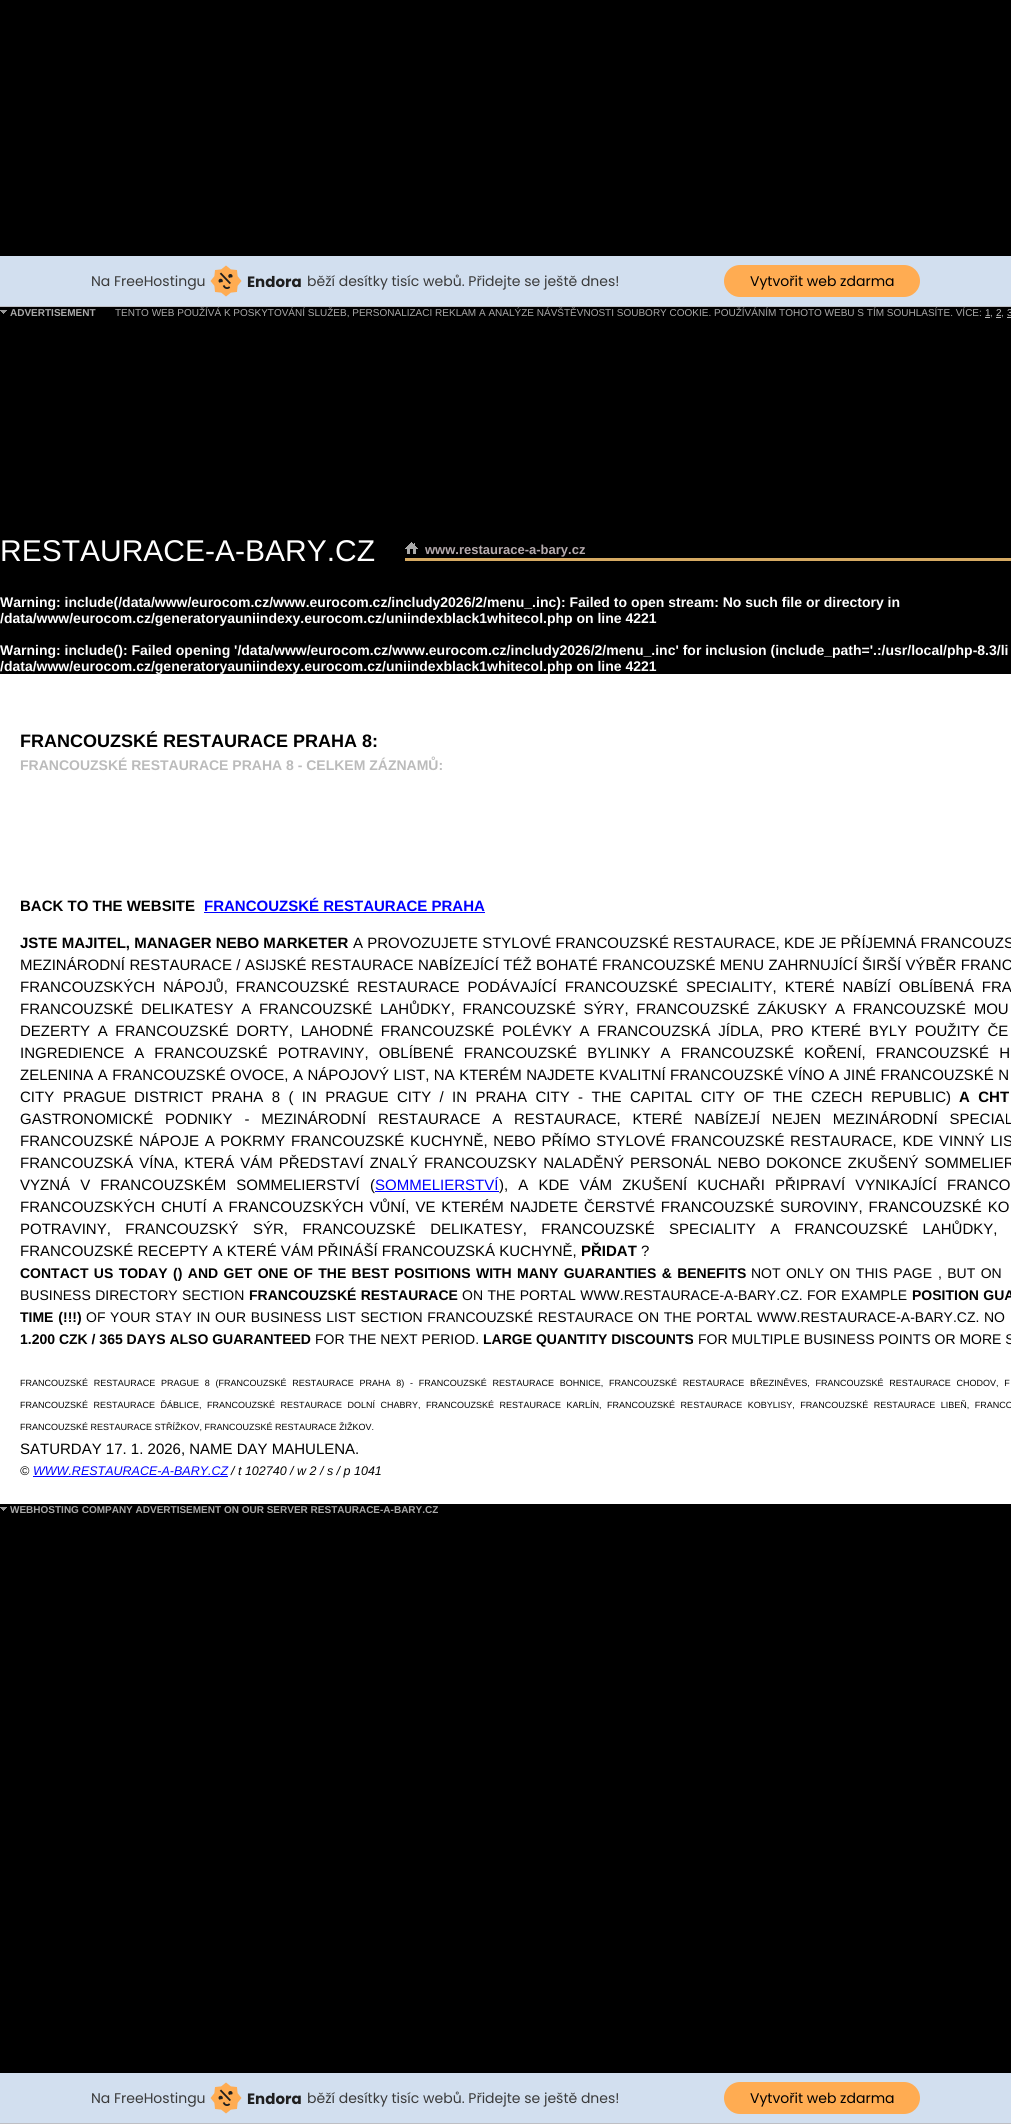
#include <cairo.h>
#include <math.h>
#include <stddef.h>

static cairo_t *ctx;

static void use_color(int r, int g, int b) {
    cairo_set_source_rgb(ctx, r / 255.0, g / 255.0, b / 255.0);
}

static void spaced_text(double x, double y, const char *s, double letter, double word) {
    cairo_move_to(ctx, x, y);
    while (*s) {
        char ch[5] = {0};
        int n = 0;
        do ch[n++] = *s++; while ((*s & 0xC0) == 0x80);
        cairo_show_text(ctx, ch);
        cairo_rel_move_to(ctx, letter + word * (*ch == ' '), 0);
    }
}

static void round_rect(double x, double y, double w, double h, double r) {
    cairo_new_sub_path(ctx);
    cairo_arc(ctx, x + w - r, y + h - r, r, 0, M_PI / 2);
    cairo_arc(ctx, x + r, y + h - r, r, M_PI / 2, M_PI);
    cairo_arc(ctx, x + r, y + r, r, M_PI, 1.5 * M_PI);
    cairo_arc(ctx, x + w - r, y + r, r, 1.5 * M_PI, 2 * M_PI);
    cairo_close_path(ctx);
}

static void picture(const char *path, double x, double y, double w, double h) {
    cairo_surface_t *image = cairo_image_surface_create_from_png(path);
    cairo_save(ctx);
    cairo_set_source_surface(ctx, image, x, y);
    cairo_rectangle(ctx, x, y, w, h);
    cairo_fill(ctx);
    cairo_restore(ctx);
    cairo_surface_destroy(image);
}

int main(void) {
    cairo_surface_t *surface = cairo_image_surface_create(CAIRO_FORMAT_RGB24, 1011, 2124);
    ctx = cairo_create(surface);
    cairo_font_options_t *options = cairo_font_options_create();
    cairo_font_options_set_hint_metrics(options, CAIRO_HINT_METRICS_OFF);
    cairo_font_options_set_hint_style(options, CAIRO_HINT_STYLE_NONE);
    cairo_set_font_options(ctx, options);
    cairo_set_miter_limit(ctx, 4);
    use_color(0, 0, 0);
    cairo_paint(ctx);
    use_color(210, 223, 239);
    cairo_rectangle(ctx, 0, 256, 1011, 50);
    cairo_fill(ctx);
    use_color(190, 191, 196);
    cairo_rectangle(ctx, 0, 306, 1011, 1);
    cairo_fill(ctx);
    cairo_select_font_face(ctx, "Poppins", CAIRO_FONT_SLANT_NORMAL, CAIRO_FONT_WEIGHT_NORMAL);
    cairo_set_font_size(ctx, 14);
    use_color(58, 58, 58);
    cairo_move_to(ctx, 91, 286);
    cairo_show_text(ctx, "Na FreeHostingu");
    picture("img1.png", 210, 265, 32, 32);
    cairo_select_font_face(ctx, "Poppins", CAIRO_FONT_SLANT_NORMAL, CAIRO_FONT_WEIGHT_BOLD);
    cairo_set_font_size(ctx, 15);
    use_color(30, 30, 30);
    cairo_move_to(ctx, 247, 287);
    cairo_show_text(ctx, "Endora");
    cairo_select_font_face(ctx, "Poppins", CAIRO_FONT_SLANT_NORMAL, CAIRO_FONT_WEIGHT_NORMAL);
    cairo_set_font_size(ctx, 14);
    use_color(58, 58, 58);
    cairo_move_to(ctx, 307, 286);
    cairo_show_text(ctx, "běží desítky tisíc webů. Přidejte se ještě dnes!");
    use_color(255, 172, 82);
    round_rect(724, 265, 196, 32, 16);
    cairo_fill(ctx);
    use_color(0, 0, 0);
    cairo_move_to(ctx, 750, 286);
    cairo_show_text(ctx, "Vytvořit web zdarma");
    picture("img2.png", 0, 310, 7, 4);
    cairo_select_font_face(ctx, "Liberation Sans", CAIRO_FONT_SLANT_NORMAL, CAIRO_FONT_WEIGHT_BOLD);
    cairo_set_font_size(ctx, 10);
    use_color(170, 170, 170);
    cairo_move_to(ctx, 10, 316);
    cairo_show_text(ctx, "ADVERTISEMENT");
    cairo_select_font_face(ctx, "Liberation Sans", CAIRO_FONT_SLANT_NORMAL, CAIRO_FONT_WEIGHT_NORMAL);
    cairo_move_to(ctx, 115, 316);
    cairo_show_text(ctx, "TENTO WEB POUŽÍVÁ K POSKYTOVÁNÍ SLUŽEB, PERSONALIZACI REKLAM A ANALÝZE NÁVŠTĚVNOSTI SOUBORY COOKIE. POUŽÍVÁNÍM TOHOTO WEBU S TÍM SOUHLASÍTE. VÍCE:");
    use_color(187, 187, 187);
    cairo_move_to(ctx, 985, 316);
    cairo_show_text(ctx, "1");
    cairo_rectangle(ctx, 985, 317, 5, 1);
    cairo_fill(ctx);
    use_color(170, 170, 170);
    cairo_move_to(ctx, 990, 316);
    cairo_show_text(ctx, ",");
    use_color(187, 187, 187);
    cairo_move_to(ctx, 996, 316);
    cairo_show_text(ctx, "2");
    cairo_rectangle(ctx, 996, 317, 5, 1);
    cairo_fill(ctx);
    use_color(170, 170, 170);
    cairo_move_to(ctx, 1001, 316);
    cairo_show_text(ctx, ",");
    use_color(187, 187, 187);
    cairo_move_to(ctx, 1007, 316);
    cairo_show_text(ctx, "3");
    cairo_rectangle(ctx, 1007, 317, 4, 1);
    cairo_fill(ctx);
    cairo_set_font_size(ctx, 30);
    use_color(255, 255, 255);
    cairo_move_to(ctx, 0, 561);
    cairo_show_text(ctx, "RESTAURACE-A-BARY.CZ");
    picture("img3.png", 405, 542, 13, 12);
    cairo_select_font_face(ctx, "Liberation Sans", CAIRO_FONT_SLANT_NORMAL, CAIRO_FONT_WEIGHT_BOLD);
    cairo_set_font_size(ctx, 13);
    use_color(181, 170, 173);
    cairo_move_to(ctx, 425, 554);
    cairo_show_text(ctx, "www.restaurace-a-bary.cz");
    use_color(214, 170, 99);
    cairo_rectangle(ctx, 405, 558, 606, 3);
    cairo_fill(ctx);
    cairo_set_font_size(ctx, 14);
    use_color(255, 255, 255);
    cairo_move_to(ctx, 0, 607);
    cairo_show_text(ctx, "Warning: include(/data/www/eurocom.cz/www.eurocom.cz/includy2026/2/menu_.inc): Failed to open stream: No such file or directory in");
    cairo_move_to(ctx, 0, 623);
    cairo_show_text(ctx, "/data/www/eurocom.cz/generatoryauniindexy.eurocom.cz/uniindexblack1whitecol.php on line 4221");
    cairo_move_to(ctx, 0, 655);
    cairo_show_text(ctx, "Warning: include(): Failed opening '/data/www/eurocom.cz/www.eurocom.cz/includy2026/2/menu_.inc' for inclusion (include_path='.:/usr/local/php-8.3/li");
    cairo_move_to(ctx, 0, 671);
    cairo_show_text(ctx, "/data/www/eurocom.cz/generatoryauniindexy.eurocom.cz/uniindexblack1whitecol.php on line 4221");
    cairo_rectangle(ctx, 0, 674, 1011, 830);
    cairo_fill(ctx);
    cairo_set_font_size(ctx, 18);
    use_color(0, 0, 0);
    cairo_move_to(ctx, 20, 747);
    cairo_show_text(ctx, "FRANCOUZSKÉ RESTAURACE PRAHA 8:");
    cairo_set_font_size(ctx, 14);
    use_color(187, 187, 187);
    cairo_move_to(ctx, 20, 770);
    cairo_show_text(ctx, "FRANCOUZSKÉ RESTAURACE PRAHA 8 - CELKEM ZÁZNAMŮ:");
    cairo_set_font_size(ctx, 15);
    use_color(0, 0, 0);
    cairo_move_to(ctx, 20, 911);
    cairo_show_text(ctx, "BACK TO THE WEBSITE");
    use_color(0, 0, 255);
    cairo_move_to(ctx, 204, 911);
    cairo_show_text(ctx, "FRANCOUZSKÉ RESTAURACE PRAHA");
    cairo_rectangle(ctx, 204, 912, 281, 1);
    cairo_fill(ctx);
    use_color(0, 0, 0);
    cairo_move_to(ctx, 20, 948);
    cairo_show_text(ctx, "JSTE MAJITEL, MANAGER NEBO MARKETER");
    cairo_select_font_face(ctx, "Liberation Sans", CAIRO_FONT_SLANT_NORMAL, CAIRO_FONT_WEIGHT_NORMAL);
    cairo_move_to(ctx, 353, 948);
    cairo_show_text(ctx, "A PROVOZUJETE STYLOVÉ FRANCOUZSKÉ RESTAURACE, KDE JE PŘÍJEMNÁ FRANCOUZS");
    spaced_text(20, 970, "MEZINÁRODNÍ RESTAURACE / ASIJSKÉ RESTAURACE NABÍZEJÍCÍ TÉŽ BOHATÉ FRANCOUZSKÉ MENU ZAHRNUJÍCÍ ŠIRŠÍ VÝBĚR FRANC", 0, 0.25);
    spaced_text(20, 992, "FRANCOUZSKÝCH NÁPOJŮ, FRANCOUZSKÉ RESTAURACE PODÁVAJÍCÍ FRANCOUZSKÉ SPECIALITY, KTERÉ NABÍZÍ OBLÍBENÁ FRA", 0, 3.75);
    spaced_text(20, 1014, "FRANCOUZSKÉ DELIKATESY A FRANCOUZSKÉ LAHŮDKY, FRANCOUZSKÉ SÝRY, FRANCOUZSKÉ ZÁKUSKY A FRANCOUZSKÉ MOU", 0, 3.5);
    spaced_text(20, 1036, "DEZERTY A FRANCOUZSKÉ DORTY, LAHODNÉ FRANCOUZSKÉ POLÉVKY A FRANCOUZSKÁ JÍDLA, PRO KTERÉ BYLY POUŽITY ČE", 0, 3.5);
    spaced_text(20, 1058, "INGREDIENCE A FRANCOUZSKÉ POTRAVINY, OBLÍBENÉ FRANCOUZSKÉ BYLINKY A FRANCOUZSKÉ KOŘENÍ, FRANCOUZSKÉ H", 0, 5.9);
    spaced_text(20, 1080, "ZELENINA A FRANCOUZSKÉ OVOCE, A NÁPOJOVÝ LIST, NA KTERÉM NAJDETE KVALITNÍ FRANCOUZSKÉ VÍNO A JINÉ FRANCOUZSKÉ N", 0, 0.3);
    cairo_move_to(ctx, 20, 1102);
    cairo_show_text(ctx, "CITY");
    cairo_move_to(ctx, 63, 1102);
    cairo_show_text(ctx, "PRAGUE");
    spaced_text(134, 1102, "DISTRICT PRAHA 8 ( IN PRAGUE CITY /", 0, 4.25);
    spaced_text(452, 1102, "IN PRAHA CITY - THE CAPITAL CITY OF THE", 0, 4.25);
    spaced_text(811, 1102, "CZECH REPUBLIC", 0, 4.25);
    cairo_move_to(ctx, 946, 1102);
    cairo_show_text(ctx, ")");
    cairo_select_font_face(ctx, "Liberation Sans", CAIRO_FONT_SLANT_NORMAL, CAIRO_FONT_WEIGHT_BOLD);
    spaced_text(959, 1102, "A CHT", 0, 4.25);
    cairo_select_font_face(ctx, "Liberation Sans", CAIRO_FONT_SLANT_NORMAL, CAIRO_FONT_WEIGHT_NORMAL);
    spaced_text(20, 1124, "GASTRONOMICKÉ PODNIKY - MEZINÁRODNÍ RESTAURACE A RESTAURACE, KTERÉ NABÍZEJÍ NEJEN MEZINÁRODNÍ SPECIAL", 0, 7.6);
    spaced_text(20, 1146, "FRANCOUZSKÉ NÁPOJE A POKRMY FRANCOUZSKÉ KUCHYNĚ, NEBO PŘÍMO STYLOVÉ FRANCOUZSKÉ RESTAURACE, KDE VINNÝ LIS", 0, 1.5);
    spaced_text(20, 1168, "FRANCOUZSKÁ VÍNA, KTERÁ VÁM PŘEDSTAVÍ ZNALÝ FRANCOUZSKY NALADĚNÝ PERSONÁL NEBO DOKONCE ZKUŠENÝ SOMMELIER", 0, 1.75);
    spaced_text(20, 1190, "VYZNÁ V FRANCOUZSKÉM SOMMELIERSTVÍ (", 0, 6);
    use_color(0, 0, 255);
    cairo_move_to(ctx, 375, 1190);
    cairo_show_text(ctx, "SOMMELIERSTVÍ");
    cairo_rectangle(ctx, 375, 1191, 124, 1);
    cairo_fill(ctx);
    use_color(0, 0, 0);
    spaced_text(499, 1190, "), A KDE VÁM ZKUŠENÍ KUCHAŘI PŘIPRAVÍ VYNIKAJÍCÍ FRANCO", 0, 6);
    spaced_text(20, 1212, "FRANCOUZSKÝCH CHUTÍ A FRANCOUZSKÝCH VŮNÍ, VE KTERÉM NAJDETE ČERSTVÉ FRANCOUZSKÉ SUROVINY, FRANCOUZSKÉ KO", 0, 1.75);
    spaced_text(20, 1234, "POTRAVINY, FRANCOUZSKÝ SÝR, FRANCOUZSKÉ DELIKATESY, FRANCOUZSKÉ SPECIALITY A FRANCOUZSKÉ LAHŮDKY,", 0, 10.25);
    cairo_move_to(ctx, 20, 1256);
    cairo_show_text(ctx, "FRANCOUZSKÉ RECEPTY A KTERÉ VÁM PŘINÁŠÍ FRANCOUZSKÁ KUCHYNĚ,");
    cairo_select_font_face(ctx, "Liberation Sans", CAIRO_FONT_SLANT_NORMAL, CAIRO_FONT_WEIGHT_BOLD);
    cairo_move_to(ctx, 581, 1256);
    cairo_show_text(ctx, "PŘIDAT");
    cairo_select_font_face(ctx, "Liberation Sans", CAIRO_FONT_SLANT_NORMAL, CAIRO_FONT_WEIGHT_NORMAL);
    cairo_move_to(ctx, 641, 1256);
    cairo_show_text(ctx, "?");
    cairo_select_font_face(ctx, "Liberation Sans", CAIRO_FONT_SLANT_NORMAL, CAIRO_FONT_WEIGHT_BOLD);
    cairo_set_font_size(ctx, 14);
    spaced_text(20, 1278, "CONTACT US TODAY () AND GET ONE OF THE BEST POSITIONS WITH MANY GUARANTIES & BENEFITS", 0, 1.5);
    cairo_select_font_face(ctx, "Liberation Sans", CAIRO_FONT_SLANT_NORMAL, CAIRO_FONT_WEIGHT_NORMAL);
    spaced_text(751, 1278, "NOT ONLY ON THIS PAGE", 0, 1.5);
    spaced_text(938, 1278, ", BUT ON", 0, 1.5);
    spaced_text(20, 1300, "BUSINESS DIRECTORY SECTION", 0, 0.5);
    cairo_select_font_face(ctx, "Liberation Sans", CAIRO_FONT_SLANT_NORMAL, CAIRO_FONT_WEIGHT_BOLD);
    spaced_text(249, 1300, "FRANCOUZSKÉ RESTAURACE", 0, 0.5);
    cairo_select_font_face(ctx, "Liberation Sans", CAIRO_FONT_SLANT_NORMAL, CAIRO_FONT_WEIGHT_NORMAL);
    spaced_text(462, 1300, "ON THE PORTAL WWW.RESTAURACE-A-BARY.CZ. FOR EXAMPLE", 0, 0.5);
    cairo_select_font_face(ctx, "Liberation Sans", CAIRO_FONT_SLANT_NORMAL, CAIRO_FONT_WEIGHT_BOLD);
    spaced_text(912, 1300, "POSITION GUA", 0, 0.5);
    spaced_text(20, 1322, "TIME (!!!)", 0, 1);
    cairo_select_font_face(ctx, "Liberation Sans", CAIRO_FONT_SLANT_NORMAL, CAIRO_FONT_WEIGHT_NORMAL);
    spaced_text(86, 1322, "OF YOUR STAY IN OUR BUSINESS LIST SECTION FRANCOUZSKÉ RESTAURACE ON THE PORTAL WWW.RESTAURACE-A-BARY.CZ. NO", 0, 0.75);
    cairo_select_font_face(ctx, "Liberation Sans", CAIRO_FONT_SLANT_NORMAL, CAIRO_FONT_WEIGHT_BOLD);
    cairo_move_to(ctx, 20, 1344);
    cairo_show_text(ctx, "1.200 CZK / 365 DAYS ALSO GUARANTEED");
    cairo_select_font_face(ctx, "Liberation Sans", CAIRO_FONT_SLANT_NORMAL, CAIRO_FONT_WEIGHT_NORMAL);
    cairo_move_to(ctx, 315, 1344);
    cairo_show_text(ctx, "FOR THE NEXT PERIOD.");
    cairo_select_font_face(ctx, "Liberation Sans", CAIRO_FONT_SLANT_NORMAL, CAIRO_FONT_WEIGHT_BOLD);
    cairo_move_to(ctx, 483, 1344);
    cairo_show_text(ctx, "LARGE QUANTITY DISCOUNTS");
    cairo_select_font_face(ctx, "Liberation Sans", CAIRO_FONT_SLANT_NORMAL, CAIRO_FONT_WEIGHT_NORMAL);
    cairo_move_to(ctx, 698, 1344);
    cairo_show_text(ctx, "FOR MULTIPLE BUSINESS POINTS OR MORE S");
    cairo_set_font_size(ctx, 9);
    spaced_text(20, 1386, "FRANCOUZSKÉ RESTAURACE PRAGUE 8 (FRANCOUZSKÉ RESTAURACE PRAHA 8) - FRANCOUZSKÉ RESTAURACE BOHNICE, FRANCOUZSKÉ RESTAURACE BŘEZINĚVES, FRANCOUZSKÉ RESTAURACE CHODOV, F", 0, 3.25);
    spaced_text(20, 1408, "FRANCOUZSKÉ RESTAURACE ĎÁBLICE, FRANCOUZSKÉ RESTAURACE DOLNÍ CHABRY, FRANCOUZSKÉ RESTAURACE KARLÍN, FRANCOUZSKÉ RESTAURACE KOBYLISY, FRANCOUZSKÉ RESTAURACE LIBEŇ, FRANCO", 0, 3);
    cairo_move_to(ctx, 20, 1430);
    cairo_show_text(ctx, "FRANCOUZSKÉ RESTAURACE STŘÍŽKOV, FRANCOUZSKÉ RESTAURACE ŽIŽKOV.");
    cairo_set_font_size(ctx, 15);
    cairo_move_to(ctx, 20, 1454);
    cairo_show_text(ctx, "SATURDAY 17. 1. 2026, NAME DAY MAHULENA.");
    cairo_select_font_face(ctx, "Liberation Sans", CAIRO_FONT_SLANT_ITALIC, CAIRO_FONT_WEIGHT_NORMAL);
    cairo_set_font_size(ctx, 12.5);
    cairo_move_to(ctx, 20, 1475);
    cairo_show_text(ctx, "©");
    use_color(0, 0, 255);
    cairo_move_to(ctx, 33, 1475);
    cairo_show_text(ctx, "WWW.RESTAURACE-A-BARY.CZ");
    cairo_rectangle(ctx, 33, 1476, 195, 1);
    cairo_fill(ctx);
    use_color(0, 0, 0);
    cairo_move_to(ctx, 231, 1475);
    cairo_show_text(ctx, "/ t 102740 / w 2 / s / p 1041");
    picture("img2.png", 0, 1507, 7, 4);
    cairo_select_font_face(ctx, "Liberation Sans", CAIRO_FONT_SLANT_NORMAL, CAIRO_FONT_WEIGHT_BOLD);
    cairo_set_font_size(ctx, 10);
    use_color(170, 170, 170);
    cairo_move_to(ctx, 10, 1513);
    cairo_show_text(ctx, "WEBHOSTING COMPANY ADVERTISEMENT ON OUR SERVER RESTAURACE-A-BARY.CZ");
    use_color(210, 223, 239);
    cairo_rectangle(ctx, 0, 2073, 1011, 50);
    cairo_fill(ctx);
    use_color(190, 191, 196);
    cairo_rectangle(ctx, 0, 2123, 1011, 1);
    cairo_fill(ctx);
    cairo_select_font_face(ctx, "Poppins", CAIRO_FONT_SLANT_NORMAL, CAIRO_FONT_WEIGHT_NORMAL);
    cairo_set_font_size(ctx, 14);
    use_color(58, 58, 58);
    cairo_move_to(ctx, 91, 2103);
    cairo_show_text(ctx, "Na FreeHostingu");
    picture("img1.png", 210, 2082, 32, 32);
    cairo_select_font_face(ctx, "Poppins", CAIRO_FONT_SLANT_NORMAL, CAIRO_FONT_WEIGHT_BOLD);
    cairo_set_font_size(ctx, 15);
    use_color(30, 30, 30);
    cairo_move_to(ctx, 247, 2104);
    cairo_show_text(ctx, "Endora");
    cairo_select_font_face(ctx, "Poppins", CAIRO_FONT_SLANT_NORMAL, CAIRO_FONT_WEIGHT_NORMAL);
    cairo_set_font_size(ctx, 14);
    use_color(58, 58, 58);
    cairo_move_to(ctx, 307, 2103);
    cairo_show_text(ctx, "běží desítky tisíc webů. Přidejte se ještě dnes!");
    use_color(255, 172, 82);
    round_rect(724, 2082, 196, 32, 16);
    cairo_fill(ctx);
    use_color(0, 0, 0);
    cairo_move_to(ctx, 750, 2103);
    cairo_show_text(ctx, "Vytvořit web zdarma");
    cairo_surface_write_to_png(surface, "result.png");
    cairo_font_options_destroy(options);
    cairo_destroy(ctx);
    cairo_surface_destroy(surface);
    return 0;
}
